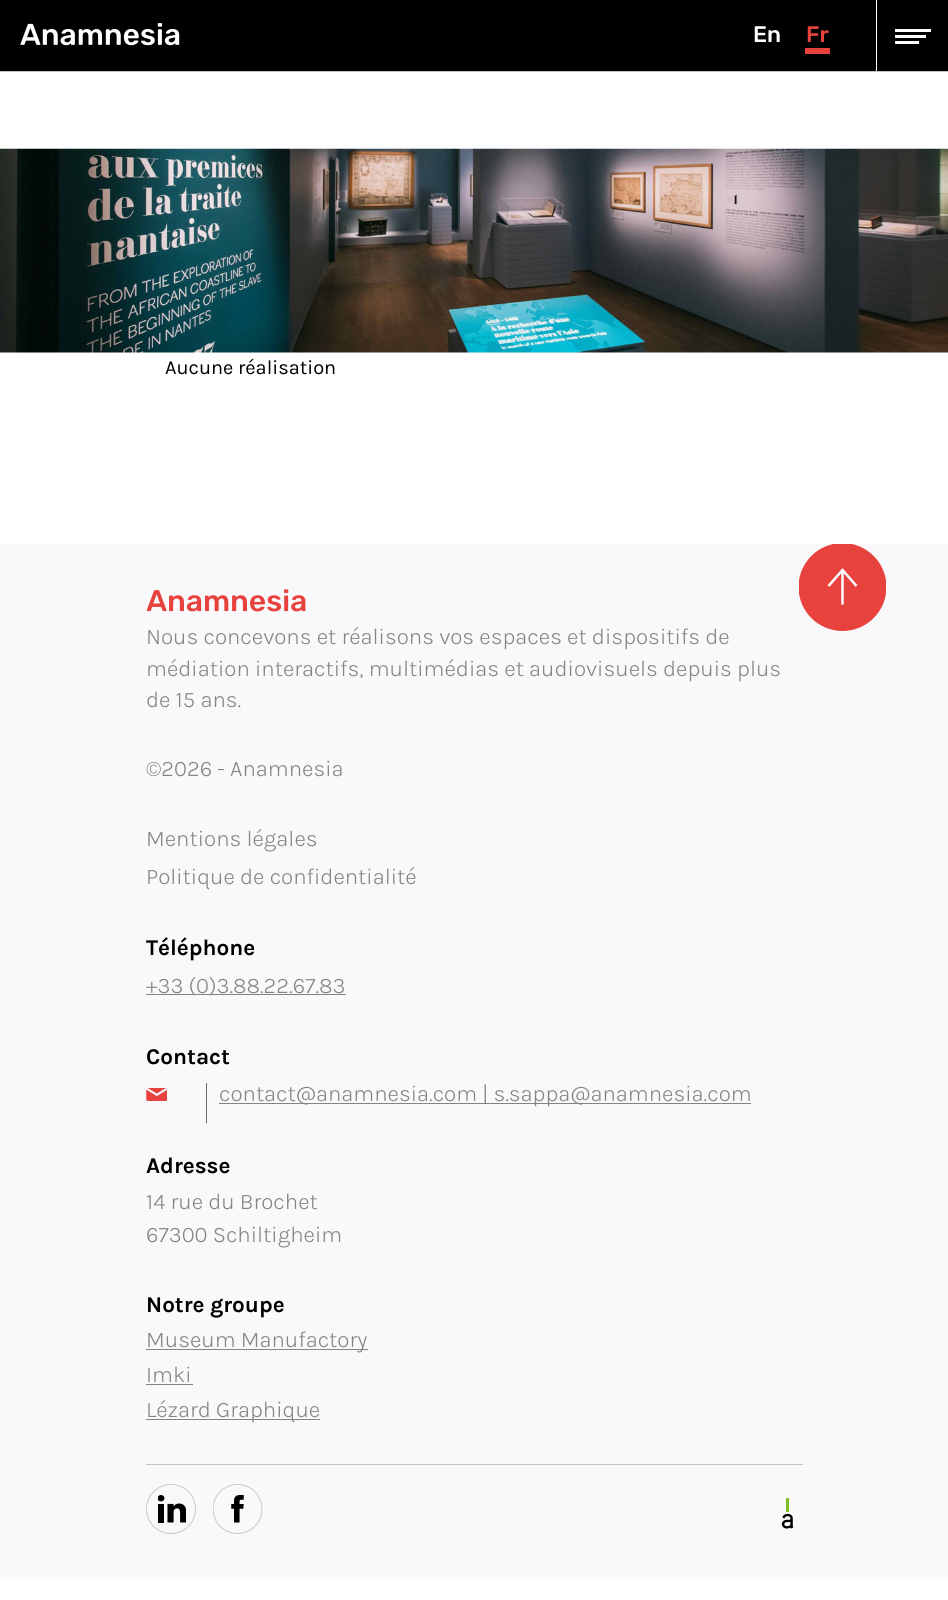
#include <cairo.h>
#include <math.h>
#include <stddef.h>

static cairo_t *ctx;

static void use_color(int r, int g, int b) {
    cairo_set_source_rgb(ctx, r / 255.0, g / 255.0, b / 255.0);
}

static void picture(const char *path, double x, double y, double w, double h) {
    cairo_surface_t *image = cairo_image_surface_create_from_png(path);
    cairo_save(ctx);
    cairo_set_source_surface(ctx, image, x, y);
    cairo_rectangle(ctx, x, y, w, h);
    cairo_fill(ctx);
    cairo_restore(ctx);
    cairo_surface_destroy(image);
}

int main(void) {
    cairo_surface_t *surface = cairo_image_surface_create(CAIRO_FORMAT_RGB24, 948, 1600);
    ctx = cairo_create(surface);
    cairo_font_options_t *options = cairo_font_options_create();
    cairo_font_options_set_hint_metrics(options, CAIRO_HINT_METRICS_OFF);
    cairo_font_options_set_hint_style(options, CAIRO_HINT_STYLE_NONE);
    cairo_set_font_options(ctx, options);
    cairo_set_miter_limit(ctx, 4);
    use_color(255, 255, 255);
    cairo_paint(ctx);
    use_color(0, 0, 0);
    cairo_rectangle(ctx, 0, 0, 948, 71);
    cairo_fill(ctx);
    picture("img1.png", 20, 23, 160, 23);
    cairo_select_font_face(ctx, "Rubik Medium", CAIRO_FONT_SLANT_NORMAL, CAIRO_FONT_WEIGHT_NORMAL);
    cairo_set_font_size(ctx, 22.5);
    use_color(255, 255, 255);
    cairo_move_to(ctx, 753, 42);
    cairo_show_text(ctx, "En");
    use_color(232, 66, 63);
    cairo_move_to(ctx, 806, 42);
    cairo_show_text(ctx, "Fr");
    cairo_rectangle(ctx, 805, 48, 25, 6);
    cairo_fill(ctx);
    use_color(255, 255, 255);
    cairo_rectangle(ctx, 876, 0, 1, 71);
    cairo_fill(ctx);
    cairo_rectangle(ctx, 895, 29, 36, 3);
    cairo_fill(ctx);
    cairo_rectangle(ctx, 895, 35, 31, 3);
    cairo_fill(ctx);
    cairo_rectangle(ctx, 895, 41, 24, 3);
    cairo_fill(ctx);
    use_color(196, 196, 196);
    cairo_rectangle(ctx, 0, 71, 948, 1);
    cairo_fill(ctx);
    picture("img2.png", 0, 148, 948, 205);
    cairo_select_font_face(ctx, "Karla", CAIRO_FONT_SLANT_NORMAL, CAIRO_FONT_WEIGHT_NORMAL);
    cairo_set_font_size(ctx, 20);
    use_color(0, 0, 0);
    cairo_move_to(ctx, 165, 374);
    cairo_show_text(ctx, "Aucune réalisation");
    use_color(249, 249, 251);
    cairo_rectangle(ctx, 0, 544, 948, 1035);
    cairo_fill(ctx);
    cairo_save(ctx);
    cairo_rectangle(ctx, 799, 544, 87, 87);
    cairo_clip(ctx);
    use_color(232, 66, 63);
    cairo_arc(ctx, 842.5, 587, 44, 0, 2 * M_PI);
    cairo_fill(ctx);
    cairo_restore(ctx);
    cairo_new_path(ctx);
    cairo_move_to(ctx, 856.5, 586);
    cairo_line_to(ctx, 842.5, 570);
    cairo_line_to(ctx, 828.5, 586);
    cairo_move_to(ctx, 842.5, 604.5);
    cairo_line_to(ctx, 842.5, 570);
    use_color(255, 255, 255);
    cairo_set_line_width(ctx, 2.5);
    cairo_stroke(ctx);
    picture("img3.png", 146, 589, 160, 23);
    cairo_select_font_face(ctx, "Karla Light", CAIRO_FONT_SLANT_NORMAL, CAIRO_FONT_WEIGHT_NORMAL);
    cairo_set_font_size(ctx, 22.5);
    use_color(132, 132, 132);
    cairo_move_to(ctx, 146, 644);
    cairo_show_text(ctx, "Nous concevons et réalisons vos espaces et dispositifs de");
    cairo_move_to(ctx, 146, 676);
    cairo_show_text(ctx, "médiation interactifs, multimédias et audiovisuels depuis plus");
    cairo_move_to(ctx, 146, 707);
    cairo_show_text(ctx, "de 15 ans.");
    cairo_move_to(ctx, 146, 776);
    cairo_show_text(ctx, "©2026 - Anamnesia");
    cairo_move_to(ctx, 146, 846);
    cairo_show_text(ctx, "Mentions légales");
    cairo_move_to(ctx, 146, 884);
    cairo_show_text(ctx, "Politique de confidentialité");
    cairo_select_font_face(ctx, "Karla", CAIRO_FONT_SLANT_NORMAL, CAIRO_FONT_WEIGHT_BOLD);
    use_color(0, 0, 0);
    cairo_move_to(ctx, 146, 955);
    cairo_show_text(ctx, "Téléphone");
    use_color(132, 132, 132);
    cairo_rectangle(ctx, 146, 994, 200, 1);
    cairo_fill(ctx);
    cairo_select_font_face(ctx, "Karla Light", CAIRO_FONT_SLANT_NORMAL, CAIRO_FONT_WEIGHT_NORMAL);
    cairo_move_to(ctx, 146, 993);
    cairo_show_text(ctx, "+33 (0)3.88.22.67.83");
    cairo_select_font_face(ctx, "Karla", CAIRO_FONT_SLANT_NORMAL, CAIRO_FONT_WEIGHT_BOLD);
    use_color(0, 0, 0);
    cairo_move_to(ctx, 146, 1064);
    cairo_show_text(ctx, "Contact");
    picture("img4.png", 146, 1088, 21, 13);
    use_color(107, 107, 107);
    cairo_rectangle(ctx, 206, 1083, 1, 40);
    cairo_fill(ctx);
    use_color(132, 132, 132);
    cairo_rectangle(ctx, 219, 1103, 532, 1);
    cairo_fill(ctx);
    cairo_select_font_face(ctx, "Karla Light", CAIRO_FONT_SLANT_NORMAL, CAIRO_FONT_WEIGHT_NORMAL);
    cairo_move_to(ctx, 219, 1101);
    cairo_show_text(ctx, "contact@anamnesia.com | s.sappa@anamnesia.com");
    cairo_select_font_face(ctx, "Karla", CAIRO_FONT_SLANT_NORMAL, CAIRO_FONT_WEIGHT_BOLD);
    use_color(0, 0, 0);
    cairo_move_to(ctx, 146, 1173);
    cairo_show_text(ctx, "Adresse");
    cairo_select_font_face(ctx, "Karla Light", CAIRO_FONT_SLANT_NORMAL, CAIRO_FONT_WEIGHT_NORMAL);
    use_color(132, 132, 132);
    cairo_move_to(ctx, 146, 1209);
    cairo_show_text(ctx, "14 rue du Brochet");
    cairo_move_to(ctx, 146, 1242);
    cairo_show_text(ctx, "67300 Schiltigheim");
    cairo_select_font_face(ctx, "Karla", CAIRO_FONT_SLANT_NORMAL, CAIRO_FONT_WEIGHT_BOLD);
    use_color(0, 0, 0);
    cairo_move_to(ctx, 146, 1312);
    cairo_show_text(ctx, "Notre groupe");
    use_color(132, 132, 132);
    cairo_rectangle(ctx, 146, 1349, 222, 1);
    cairo_fill(ctx);
    cairo_select_font_face(ctx, "Karla Light", CAIRO_FONT_SLANT_NORMAL, CAIRO_FONT_WEIGHT_NORMAL);
    cairo_move_to(ctx, 146, 1347);
    cairo_show_text(ctx, "Museum Manufactory");
    cairo_move_to(ctx, 146, 1382);
    cairo_show_text(ctx, "Imki");
    cairo_rectangle(ctx, 146, 1384, 47, 1);
    cairo_fill(ctx);
    cairo_rectangle(ctx, 146, 1419, 174, 1);
    cairo_fill(ctx);
    cairo_move_to(ctx, 146, 1417);
    cairo_show_text(ctx, "Lézard Graphique");
    use_color(196, 196, 196);
    cairo_rectangle(ctx, 146, 1464, 657, 1);
    cairo_fill(ctx);
    cairo_arc(ctx, 171, 1509, 24.5, 0, 2 * M_PI);
    cairo_set_line_width(ctx, 0.9);
    cairo_stroke(ctx);
    picture("img5.png", 158, 1495, 28, 28);
    cairo_save(ctx);
    cairo_rectangle(ctx, 213, 1484, 50, 50);
    cairo_clip(ctx);
    cairo_arc(ctx, 237.5, 1509, 24.5, 0, 2 * M_PI);
    cairo_stroke(ctx);
    cairo_restore(ctx);
    picture("img6.png", 231, 1495, 13, 28);
    picture("img7.png", 781, 1498, 13, 31);
    cairo_surface_write_to_png(surface, "result.png");
    cairo_font_options_destroy(options);
    cairo_destroy(ctx);
    cairo_surface_destroy(surface);
    return 0;
}
